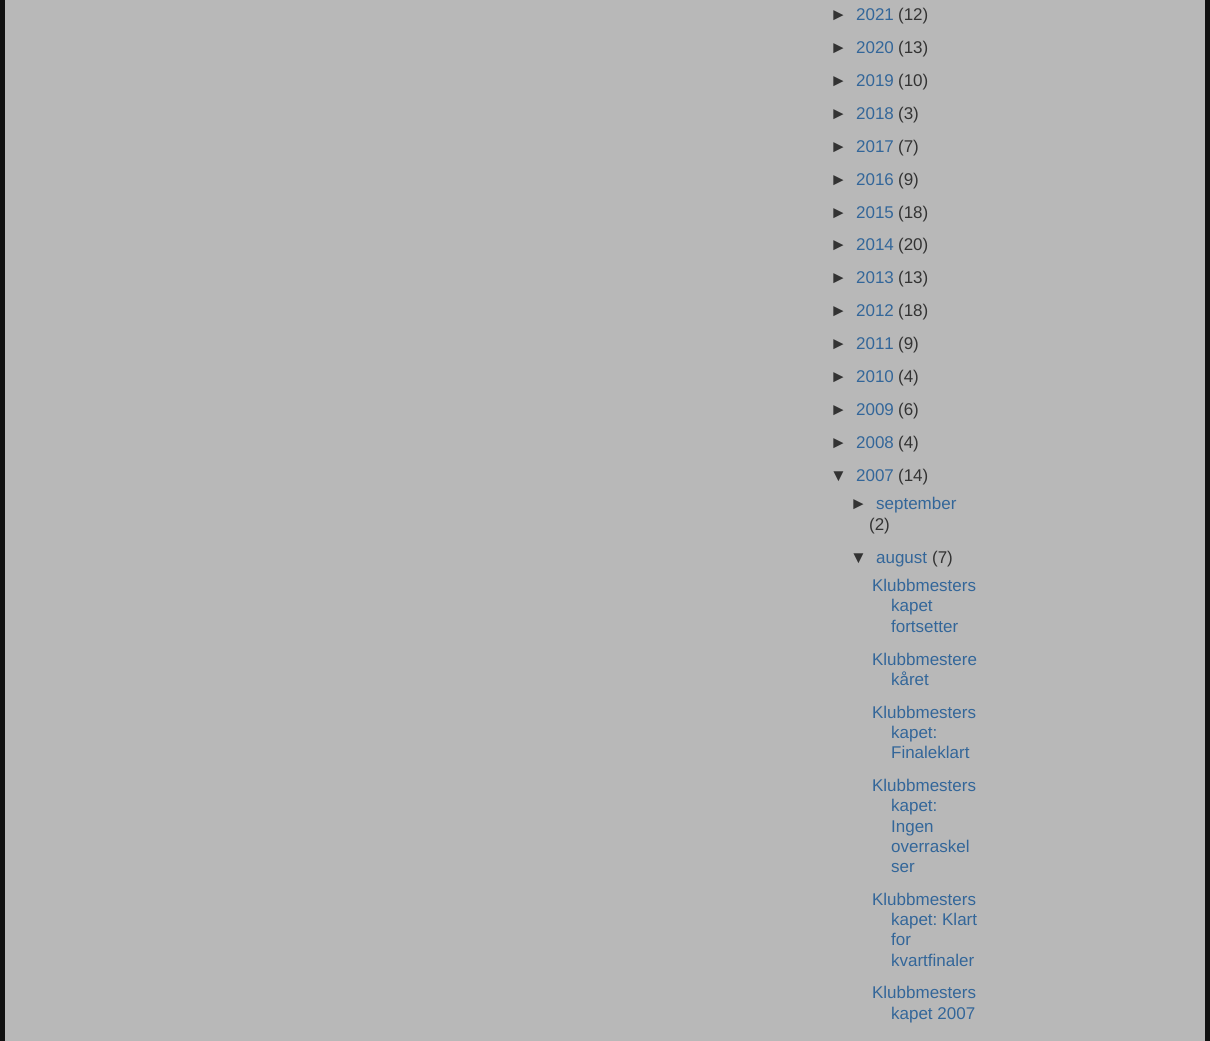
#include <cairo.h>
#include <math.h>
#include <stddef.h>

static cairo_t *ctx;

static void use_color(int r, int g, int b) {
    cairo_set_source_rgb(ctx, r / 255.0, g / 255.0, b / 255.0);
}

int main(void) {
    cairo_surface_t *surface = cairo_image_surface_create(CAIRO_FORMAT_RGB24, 1210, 1041);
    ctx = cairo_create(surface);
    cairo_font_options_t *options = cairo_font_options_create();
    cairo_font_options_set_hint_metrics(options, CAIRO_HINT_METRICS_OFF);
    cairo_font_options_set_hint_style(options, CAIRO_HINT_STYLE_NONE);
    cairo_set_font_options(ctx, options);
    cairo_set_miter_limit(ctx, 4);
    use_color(17, 17, 17);
    cairo_paint(ctx);
    use_color(184, 184, 184);
    cairo_rectangle(ctx, 5, 0, 1200, 1041);
    cairo_fill(ctx);
    cairo_select_font_face(ctx, "Liberation Sans", CAIRO_FONT_SLANT_NORMAL, CAIRO_FONT_WEIGHT_NORMAL);
    cairo_set_font_size(ctx, 17);
    use_color(51, 51, 51);
    cairo_move_to(ctx, 830, 20);
    cairo_show_text(ctx, "►");
    use_color(51, 102, 153);
    cairo_move_to(ctx, 856, 20);
    cairo_show_text(ctx, "2021");
    use_color(51, 51, 51);
    cairo_move_to(ctx, 898, 20);
    cairo_show_text(ctx, "(12)");
    cairo_move_to(ctx, 830, 53);
    cairo_show_text(ctx, "►");
    use_color(51, 102, 153);
    cairo_move_to(ctx, 856, 53);
    cairo_show_text(ctx, "2020");
    use_color(51, 51, 51);
    cairo_move_to(ctx, 898, 53);
    cairo_show_text(ctx, "(13)");
    cairo_move_to(ctx, 830, 86);
    cairo_show_text(ctx, "►");
    use_color(51, 102, 153);
    cairo_move_to(ctx, 856, 86);
    cairo_show_text(ctx, "2019");
    use_color(51, 51, 51);
    cairo_move_to(ctx, 898, 86);
    cairo_show_text(ctx, "(10)");
    cairo_move_to(ctx, 830, 119);
    cairo_show_text(ctx, "►");
    use_color(51, 102, 153);
    cairo_move_to(ctx, 856, 119);
    cairo_show_text(ctx, "2018");
    use_color(51, 51, 51);
    cairo_move_to(ctx, 898, 119);
    cairo_show_text(ctx, "(3)");
    cairo_move_to(ctx, 830, 152);
    cairo_show_text(ctx, "►");
    use_color(51, 102, 153);
    cairo_move_to(ctx, 856, 152);
    cairo_show_text(ctx, "2017");
    use_color(51, 51, 51);
    cairo_move_to(ctx, 898, 152);
    cairo_show_text(ctx, "(7)");
    cairo_move_to(ctx, 830, 185);
    cairo_show_text(ctx, "►");
    use_color(51, 102, 153);
    cairo_move_to(ctx, 856, 185);
    cairo_show_text(ctx, "2016");
    use_color(51, 51, 51);
    cairo_move_to(ctx, 898, 185);
    cairo_show_text(ctx, "(9)");
    cairo_move_to(ctx, 830, 218);
    cairo_show_text(ctx, "►");
    use_color(51, 102, 153);
    cairo_move_to(ctx, 856, 218);
    cairo_show_text(ctx, "2015");
    use_color(51, 51, 51);
    cairo_move_to(ctx, 898, 218);
    cairo_show_text(ctx, "(18)");
    cairo_move_to(ctx, 830, 250);
    cairo_show_text(ctx, "►");
    use_color(51, 102, 153);
    cairo_move_to(ctx, 856, 250);
    cairo_show_text(ctx, "2014");
    use_color(51, 51, 51);
    cairo_move_to(ctx, 898, 250);
    cairo_show_text(ctx, "(20)");
    cairo_move_to(ctx, 830, 283);
    cairo_show_text(ctx, "►");
    use_color(51, 102, 153);
    cairo_move_to(ctx, 856, 283);
    cairo_show_text(ctx, "2013");
    use_color(51, 51, 51);
    cairo_move_to(ctx, 898, 283);
    cairo_show_text(ctx, "(13)");
    cairo_move_to(ctx, 830, 316);
    cairo_show_text(ctx, "►");
    use_color(51, 102, 153);
    cairo_move_to(ctx, 856, 316);
    cairo_show_text(ctx, "2012");
    use_color(51, 51, 51);
    cairo_move_to(ctx, 898, 316);
    cairo_show_text(ctx, "(18)");
    cairo_move_to(ctx, 830, 349);
    cairo_show_text(ctx, "►");
    use_color(51, 102, 153);
    cairo_move_to(ctx, 856, 349);
    cairo_show_text(ctx, "2011");
    use_color(51, 51, 51);
    cairo_move_to(ctx, 898, 349);
    cairo_show_text(ctx, "(9)");
    cairo_move_to(ctx, 830, 382);
    cairo_show_text(ctx, "►");
    use_color(51, 102, 153);
    cairo_move_to(ctx, 856, 382);
    cairo_show_text(ctx, "2010");
    use_color(51, 51, 51);
    cairo_move_to(ctx, 898, 382);
    cairo_show_text(ctx, "(4)");
    cairo_move_to(ctx, 830, 415);
    cairo_show_text(ctx, "►");
    use_color(51, 102, 153);
    cairo_move_to(ctx, 856, 415);
    cairo_show_text(ctx, "2009");
    use_color(51, 51, 51);
    cairo_move_to(ctx, 898, 415);
    cairo_show_text(ctx, "(6)");
    cairo_move_to(ctx, 830, 448);
    cairo_show_text(ctx, "►");
    use_color(51, 102, 153);
    cairo_move_to(ctx, 856, 448);
    cairo_show_text(ctx, "2008");
    use_color(51, 51, 51);
    cairo_move_to(ctx, 898, 448);
    cairo_show_text(ctx, "(4)");
    cairo_move_to(ctx, 830, 481);
    cairo_show_text(ctx, "▼");
    use_color(51, 102, 153);
    cairo_move_to(ctx, 856, 481);
    cairo_show_text(ctx, "2007");
    use_color(51, 51, 51);
    cairo_move_to(ctx, 898, 481);
    cairo_show_text(ctx, "(14)");
    cairo_move_to(ctx, 850, 509);
    cairo_show_text(ctx, "►");
    use_color(51, 102, 153);
    cairo_move_to(ctx, 876, 509);
    cairo_show_text(ctx, "september");
    use_color(51, 51, 51);
    cairo_move_to(ctx, 869, 530);
    cairo_show_text(ctx, "(2)");
    cairo_move_to(ctx, 850, 563);
    cairo_show_text(ctx, "▼");
    use_color(51, 102, 153);
    cairo_move_to(ctx, 876, 563);
    cairo_show_text(ctx, "august");
    use_color(51, 51, 51);
    cairo_move_to(ctx, 932, 563);
    cairo_show_text(ctx, "(7)");
    use_color(51, 102, 153);
    cairo_move_to(ctx, 872, 591);
    cairo_show_text(ctx, "Klubbmesters");
    cairo_move_to(ctx, 891, 611);
    cairo_show_text(ctx, "kapet");
    cairo_move_to(ctx, 891, 632);
    cairo_show_text(ctx, "fortsetter");
    cairo_move_to(ctx, 872, 665);
    cairo_show_text(ctx, "Klubbmestere");
    cairo_move_to(ctx, 891, 685);
    cairo_show_text(ctx, "kåret");
    cairo_move_to(ctx, 872, 718);
    cairo_show_text(ctx, "Klubbmesters");
    cairo_move_to(ctx, 891, 738);
    cairo_show_text(ctx, "kapet:");
    cairo_move_to(ctx, 891, 758);
    cairo_show_text(ctx, "Finaleklart");
    cairo_move_to(ctx, 872, 791);
    cairo_show_text(ctx, "Klubbmesters");
    cairo_move_to(ctx, 891, 811);
    cairo_show_text(ctx, "kapet:");
    cairo_move_to(ctx, 891, 832);
    cairo_show_text(ctx, "Ingen");
    cairo_move_to(ctx, 891, 852);
    cairo_show_text(ctx, "overraskel");
    cairo_move_to(ctx, 891, 872);
    cairo_show_text(ctx, "ser");
    cairo_move_to(ctx, 872, 905);
    cairo_show_text(ctx, "Klubbmesters");
    cairo_move_to(ctx, 891, 925);
    cairo_show_text(ctx, "kapet: Klart");
    cairo_move_to(ctx, 891, 945);
    cairo_show_text(ctx, "for");
    cairo_move_to(ctx, 891, 966);
    cairo_show_text(ctx, "kvartfinaler");
    cairo_move_to(ctx, 872, 998);
    cairo_show_text(ctx, "Klubbmesters");
    cairo_move_to(ctx, 891, 1019);
    cairo_show_text(ctx, "kapet 2007");
    cairo_surface_write_to_png(surface, "result.png");
    cairo_font_options_destroy(options);
    cairo_destroy(ctx);
    cairo_surface_destroy(surface);
    return 0;
}
